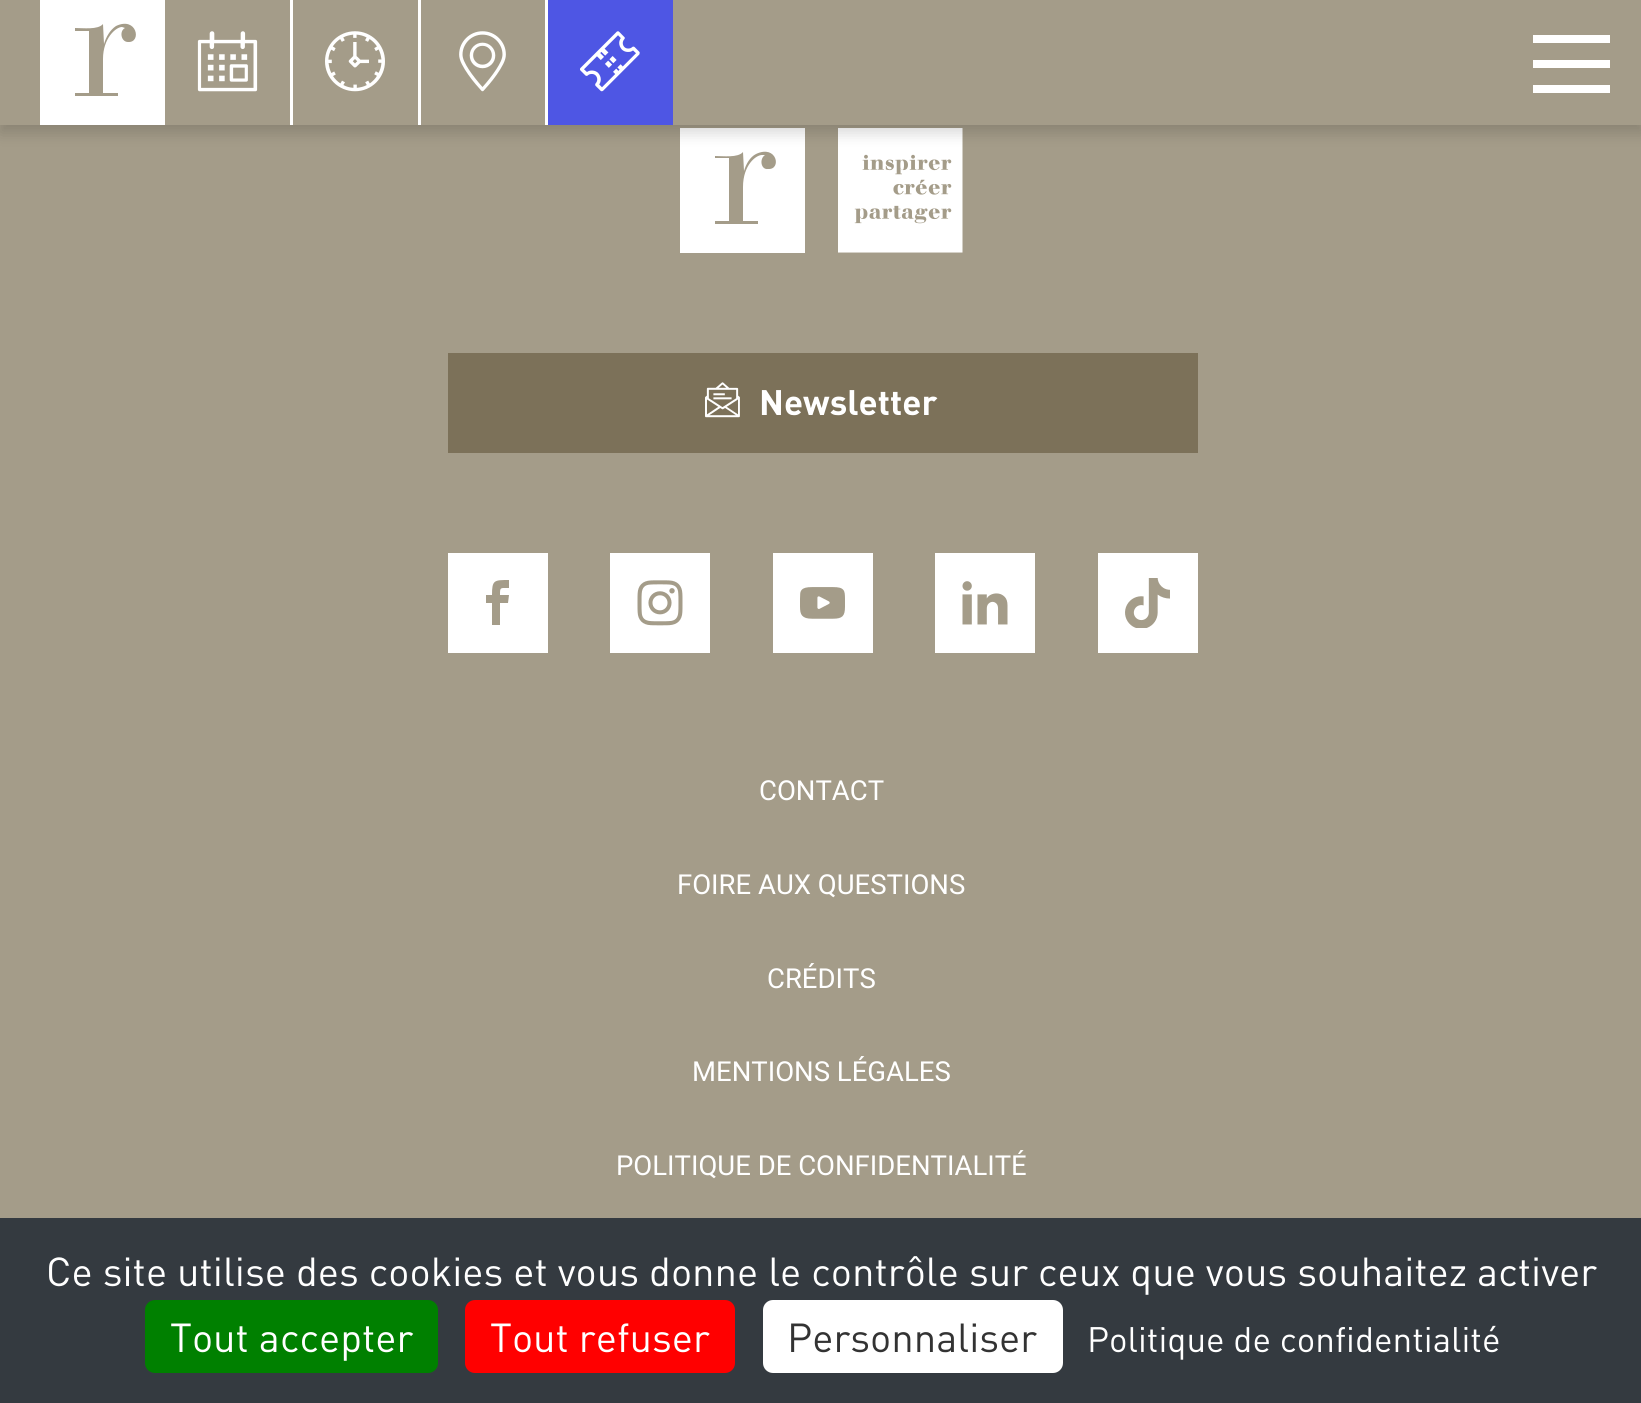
#include <cairo.h>
#include <math.h>
#include <stddef.h>

static cairo_t *ctx;

static void use_color(int r, int g, int b) {
    cairo_set_source_rgb(ctx, r / 255.0, g / 255.0, b / 255.0);
}

static void round_rect(double x, double y, double w, double h, double r) {
    cairo_new_sub_path(ctx);
    cairo_arc(ctx, x + w - r, y + h - r, r, 0, M_PI / 2);
    cairo_arc(ctx, x + r, y + h - r, r, M_PI / 2, M_PI);
    cairo_arc(ctx, x + r, y + r, r, M_PI, 1.5 * M_PI);
    cairo_arc(ctx, x + w - r, y + r, r, 1.5 * M_PI, 2 * M_PI);
    cairo_close_path(ctx);
}

static void shadow(double x, double y, double w, double h, double r, double blur, double alpha) {
    cairo_push_group_with_content(ctx, CAIRO_CONTENT_ALPHA);
    cairo_set_operator(ctx, CAIRO_OPERATOR_SOURCE);
    for (int i = 15; i >= -15 && fmin(w, h) + blur * i / 3 > 0; i -= 2) {
        double e = blur * i / 6;
        cairo_set_source_rgba(ctx, 0, 0, 0, alpha * erfc((i - 1) / 8.5) / 2);
        round_rect(x - e, y - e, w + 2 * e, h + 2 * e, fmax(0, fmin(r + e + blur * .6, fmin(w, h) / 2 + e)));
        cairo_fill(ctx);
    }
    cairo_pattern_t *soft = cairo_pop_group(ctx);
    cairo_mask(ctx, soft);
    cairo_pattern_destroy(soft);
}

static void picture(const char *path, double x, double y, double w, double h) {
    cairo_surface_t *image = cairo_image_surface_create_from_png(path);
    cairo_save(ctx);
    cairo_set_source_surface(ctx, image, x, y);
    cairo_rectangle(ctx, x, y, w, h);
    cairo_fill(ctx);
    cairo_restore(ctx);
    cairo_surface_destroy(image);
}

int main(void) {
    cairo_surface_t *surface = cairo_image_surface_create(CAIRO_FORMAT_RGB24, 1641, 1403);
    ctx = cairo_create(surface);
    cairo_font_options_t *options = cairo_font_options_create();
    cairo_font_options_set_hint_metrics(options, CAIRO_HINT_METRICS_OFF);
    cairo_font_options_set_hint_style(options, CAIRO_HINT_STYLE_NONE);
    cairo_set_font_options(ctx, options);
    cairo_set_miter_limit(ctx, 4);
    use_color(164, 156, 137);
    cairo_paint(ctx);
    use_color(255, 255, 255);
    cairo_new_path(ctx);
    cairo_move_to(ctx, 680, 253);
    cairo_line_to(ctx, 805, 253);
    cairo_line_to(ctx, 805, 128);
    cairo_line_to(ctx, 680, 128);
    cairo_close_path(ctx);
    cairo_move_to(ctx, 768, 169);
    cairo_curve_to(ctx, 761, 170, 759, 159, 765, 155);
    cairo_line_to(ctx, 762, 155);
    cairo_curve_to(ctx, 756, 155, 743, 165, 743, 187);
    cairo_line_to(ctx, 743, 221);
    cairo_line_to(ctx, 758, 221);
    cairo_line_to(ctx, 758, 224);
    cairo_line_to(ctx, 715, 224);
    cairo_line_to(ctx, 715, 221);
    cairo_line_to(ctx, 729, 221);
    cairo_line_to(ctx, 729, 158);
    cairo_line_to(ctx, 715, 158);
    cairo_line_to(ctx, 715, 156);
    cairo_curve_to(ctx, 723, 156, 738, 158, 743, 152);
    cairo_line_to(ctx, 744, 171);
    cairo_curve_to(ctx, 746, 164, 750, 157, 756, 154);
    cairo_curve_to(ctx, 777, 144, 782, 170, 768, 169);
    cairo_fill(ctx);
    picture("img5.png", 838, 128, 125, 125);
    use_color(0, 0, 0);
    shadow(0, 8, 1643, 125, 0, 7.5, 0.16);
    use_color(164, 156, 137);
    cairo_rectangle(ctx, 0, 0, 1641, 125);
    cairo_fill(ctx);
    use_color(255, 255, 255);
    cairo_new_path(ctx);
    cairo_move_to(ctx, 40, 125);
    cairo_line_to(ctx, 165, 125);
    cairo_line_to(ctx, 165, 0);
    cairo_line_to(ctx, 40, 0);
    cairo_close_path(ctx);
    cairo_move_to(ctx, 128, 42);
    cairo_curve_to(ctx, 121, 42, 119, 31, 125, 28);
    cairo_line_to(ctx, 122, 27);
    cairo_curve_to(ctx, 116, 27, 103, 38, 103, 59);
    cairo_line_to(ctx, 103, 93);
    cairo_line_to(ctx, 118, 93);
    cairo_line_to(ctx, 118, 96);
    cairo_line_to(ctx, 75, 96);
    cairo_line_to(ctx, 75, 93);
    cairo_line_to(ctx, 89, 93);
    cairo_line_to(ctx, 89, 31);
    cairo_line_to(ctx, 75, 31);
    cairo_line_to(ctx, 75, 28);
    cairo_curve_to(ctx, 83, 28, 98, 30, 103, 24);
    cairo_line_to(ctx, 104, 44);
    cairo_curve_to(ctx, 106, 37, 110, 30, 116, 26);
    cairo_curve_to(ctx, 137, 16, 142, 43, 128, 42);
    cairo_fill(ctx);
    picture("img1.png", 197, 31, 61, 61);
    cairo_rectangle(ctx, 290, 0, 3, 125);
    cairo_fill(ctx);
    picture("img2.png", 325, 31, 60, 61);
    cairo_rectangle(ctx, 418, 0, 3, 125);
    cairo_fill(ctx);
    picture("img3.png", 459, 31, 47, 61);
    cairo_rectangle(ctx, 545, 0, 3, 125);
    cairo_fill(ctx);
    use_color(78, 86, 228);
    cairo_rectangle(ctx, 548, 0, 125, 125);
    cairo_fill(ctx);
    picture("img4.png", 580, 31, 60, 61);
    use_color(255, 255, 255);
    cairo_rectangle(ctx, 1533, 35, 77, 8);
    cairo_fill(ctx);
    cairo_rectangle(ctx, 1533, 60, 77, 8);
    cairo_fill(ctx);
    cairo_rectangle(ctx, 1533, 85, 77, 8);
    cairo_fill(ctx);
    use_color(124, 113, 89);
    cairo_rectangle(ctx, 448, 353, 750, 100);
    cairo_fill(ctx);
    picture("img6.png", 705, 382, 35, 36);
    cairo_select_font_face(ctx, "DIN", CAIRO_FONT_SLANT_NORMAL, CAIRO_FONT_WEIGHT_BOLD);
    cairo_set_font_size(ctx, 35);
    use_color(255, 255, 255);
    cairo_move_to(ctx, 759, 415);
    cairo_show_text(ctx, "Newsletter");
    cairo_rectangle(ctx, 448, 553, 100, 100);
    cairo_fill(ctx);
    use_color(164, 156, 137);
    cairo_new_path(ctx);
    cairo_move_to(ctx, 500, 595);
    cairo_curve_to(ctx, 500, 587, 500, 588, 509, 588);
    cairo_line_to(ctx, 509, 580);
    cairo_curve_to(ctx, 494, 580, 492, 580, 492, 595);
    cairo_line_to(ctx, 486, 595);
    cairo_line_to(ctx, 486, 603);
    cairo_line_to(ctx, 492, 603);
    cairo_line_to(ctx, 492, 625);
    cairo_line_to(ctx, 500, 625);
    cairo_line_to(ctx, 500, 603);
    cairo_line_to(ctx, 508, 603);
    cairo_line_to(ctx, 509, 595);
    cairo_close_path(ctx);
    cairo_fill(ctx);
    use_color(255, 255, 255);
    cairo_rectangle(ctx, 610, 553, 100, 100);
    cairo_fill(ctx);
    picture("img7.png", 637, 580, 46, 46);
    cairo_rectangle(ctx, 773, 553, 100, 100);
    cairo_fill(ctx);
    picture("img8.png", 800, 587, 45, 32);
    cairo_rectangle(ctx, 935, 553, 100, 100);
    cairo_fill(ctx);
    picture("img9.png", 962, 581, 46, 44);
    cairo_rectangle(ctx, 1098, 553, 100, 100);
    cairo_fill(ctx);
    picture("img10.png", 1125, 578, 45, 50);
    cairo_select_font_face(ctx, "Roboto", CAIRO_FONT_SLANT_NORMAL, CAIRO_FONT_WEIGHT_NORMAL);
    cairo_set_font_size(ctx, 27.5);
    cairo_move_to(ctx, 759, 800);
    cairo_show_text(ctx, "CONTACT");
    cairo_move_to(ctx, 677, 894);
    cairo_show_text(ctx, "FOIRE AUX QUESTIONS");
    cairo_move_to(ctx, 767, 988);
    cairo_show_text(ctx, "CRÉDITS");
    cairo_move_to(ctx, 692, 1081);
    cairo_show_text(ctx, "MENTIONS LÉGALES");
    cairo_move_to(ctx, 616, 1175);
    cairo_show_text(ctx, "POLITIQUE DE CONFIDENTIALITÉ");
    use_color(52, 58, 64);
    cairo_rectangle(ctx, 0, 1218, 1641, 185);
    cairo_fill(ctx);
    cairo_select_font_face(ctx, "DIN", CAIRO_FONT_SLANT_NORMAL, CAIRO_FONT_WEIGHT_NORMAL);
    cairo_set_font_size(ctx, 40);
    use_color(255, 255, 255);
    cairo_move_to(ctx, 46, 1286);
    cairo_show_text(ctx, "Ce site utilise des cookies et vous donne le contrôle sur ceux que vous souhaitez activer");
    use_color(0, 128, 0);
    round_rect(145, 1300, 293, 73, 10);
    cairo_fill(ctx);
    use_color(255, 255, 255);
    cairo_move_to(ctx, 170, 1352);
    cairo_show_text(ctx, "Tout accepter");
    use_color(255, 0, 0);
    round_rect(465, 1300, 270, 73, 10);
    cairo_fill(ctx);
    use_color(255, 255, 255);
    cairo_move_to(ctx, 490, 1352);
    cairo_show_text(ctx, "Tout refuser");
    round_rect(763, 1300, 300, 73, 10);
    cairo_fill(ctx);
    use_color(51, 51, 51);
    cairo_move_to(ctx, 787, 1352);
    cairo_show_text(ctx, "Personnaliser");
    cairo_set_font_size(ctx, 35);
    use_color(255, 255, 255);
    cairo_move_to(ctx, 1087, 1352);
    cairo_show_text(ctx, "Politique de confidentialité");
    cairo_surface_write_to_png(surface, "result.png");
    cairo_font_options_destroy(options);
    cairo_destroy(ctx);
    cairo_surface_destroy(surface);
    return 0;
}
